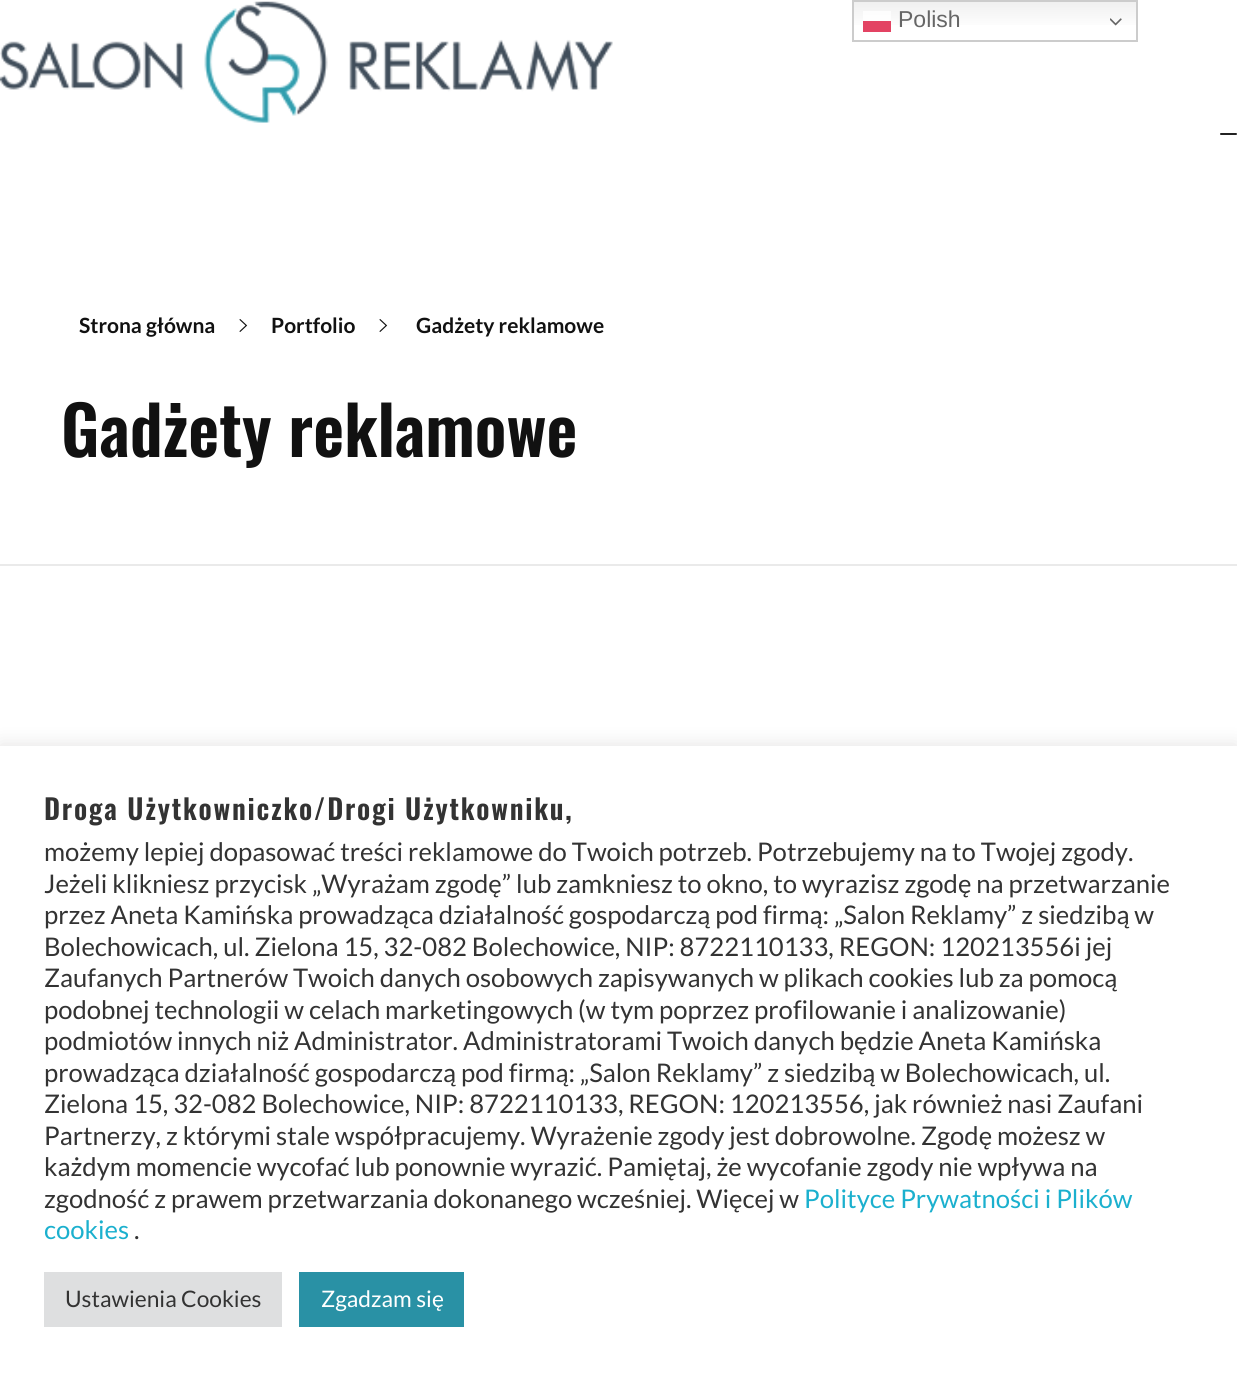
#include <cairo.h>
#include <math.h>
#include <stddef.h>

static cairo_t *ctx;

static void use_color(int r, int g, int b) {
    cairo_set_source_rgb(ctx, r / 255.0, g / 255.0, b / 255.0);
}

static void spaced_text(double x, double y, const char *s, double letter, double word) {
    cairo_move_to(ctx, x, y);
    while (*s) {
        char ch[5] = {0};
        int n = 0;
        do ch[n++] = *s++; while ((*s & 0xC0) == 0x80);
        cairo_show_text(ctx, ch);
        cairo_rel_move_to(ctx, letter + word * (*ch == ' '), 0);
    }
}

static void round_rect(double x, double y, double w, double h, double r) {
    cairo_new_sub_path(ctx);
    cairo_arc(ctx, x + w - r, y + h - r, r, 0, M_PI / 2);
    cairo_arc(ctx, x + r, y + h - r, r, M_PI / 2, M_PI);
    cairo_arc(ctx, x + r, y + r, r, M_PI, 1.5 * M_PI);
    cairo_arc(ctx, x + w - r, y + r, r, 1.5 * M_PI, 2 * M_PI);
    cairo_close_path(ctx);
}

static void shadow(double x, double y, double w, double h, double r, double blur, double alpha) {
    cairo_push_group_with_content(ctx, CAIRO_CONTENT_ALPHA);
    cairo_set_operator(ctx, CAIRO_OPERATOR_SOURCE);
    for (int i = 15; i >= -15 && fmin(w, h) + blur * i / 3 > 0; i -= 2) {
        double e = blur * i / 6;
        cairo_set_source_rgba(ctx, 0, 0, 0, alpha * erfc((i - 1) / 8.5) / 2);
        round_rect(x - e, y - e, w + 2 * e, h + 2 * e, fmax(0, fmin(r + e + blur * .6, fmin(w, h) / 2 + e)));
        cairo_fill(ctx);
    }
    cairo_pattern_t *soft = cairo_pop_group(ctx);
    cairo_mask(ctx, soft);
    cairo_pattern_destroy(soft);
}

static void picture(const char *path, double x, double y, double w, double h) {
    cairo_surface_t *image = cairo_image_surface_create_from_png(path);
    cairo_save(ctx);
    cairo_set_source_surface(ctx, image, x, y);
    cairo_rectangle(ctx, x, y, w, h);
    cairo_fill(ctx);
    cairo_restore(ctx);
    cairo_surface_destroy(image);
}

int main(void) {
    cairo_surface_t *surface = cairo_image_surface_create(CAIRO_FORMAT_RGB24, 1237, 1378);
    ctx = cairo_create(surface);
    cairo_font_options_t *options = cairo_font_options_create();
    cairo_font_options_set_hint_metrics(options, CAIRO_HINT_METRICS_OFF);
    cairo_font_options_set_hint_style(options, CAIRO_HINT_STYLE_NONE);
    cairo_set_font_options(ctx, options);
    cairo_set_miter_limit(ctx, 4);
    cairo_pattern_t *gradient;
    use_color(255, 255, 255);
    cairo_paint(ctx);
    gradient = cairo_pattern_create_linear(995, 0, 995, 42);
    cairo_pattern_add_color_stop_rgba(gradient, 0, 0.937, 0.937, 0.937, 1);
    cairo_pattern_add_color_stop_rgba(gradient, 0.7, 1, 1, 1, 1);
    cairo_set_source(ctx, gradient);
    cairo_pattern_destroy(gradient);
    cairo_rectangle(ctx, 854, 2, 282, 23);
    cairo_fill(ctx);
    gradient = cairo_pattern_create_linear(995, 0, 995, 42);
    cairo_pattern_add_color_stop_rgba(gradient, 0, 0.988, 0.988, 0.988, 1);
    cairo_pattern_add_color_stop_rgba(gradient, 0.7, 1, 1, 1, 1);
    cairo_set_source(ctx, gradient);
    cairo_pattern_destroy(gradient);
    cairo_rectangle(ctx, 863, 11, 28, 10);
    cairo_fill(ctx);
    cairo_rectangle(ctx, 853, 1, 284, 40);
    use_color(204, 204, 204);
    cairo_stroke(ctx);
    use_color(227, 67, 99);
    cairo_rectangle(ctx, 863, 21, 28, 11);
    cairo_fill(ctx);
    cairo_select_font_face(ctx, "Liberation Sans", CAIRO_FONT_SLANT_NORMAL, CAIRO_FONT_WEIGHT_NORMAL);
    cairo_set_font_size(ctx, 23);
    use_color(102, 102, 102);
    cairo_move_to(ctx, 898, 27);
    cairo_show_text(ctx, "Polish");
    picture("img1.png", 1110, 18, 12, 8);
    picture("img2.png", 0, 1, 613, 122);
    use_color(34, 34, 34);
    round_rect(1220, 133, 17, 2, 1);
    cairo_fill(ctx);
    use_color(234, 234, 234);
    cairo_rectangle(ctx, 0, 564, 1237, 2);
    cairo_fill(ctx);
    cairo_select_font_face(ctx, "Lato", CAIRO_FONT_SLANT_NORMAL, CAIRO_FONT_WEIGHT_BOLD);
    cairo_set_font_size(ctx, 21);
    use_color(17, 17, 17);
    cairo_move_to(ctx, 79, 333);
    cairo_show_text(ctx, "Strona główna");
    picture("img3.png", 239, 319, 9, 13);
    cairo_move_to(ctx, 271, 333);
    cairo_show_text(ctx, "Portfolio");
    picture("img3.png", 379, 319, 9, 13);
    cairo_move_to(ctx, 416, 333);
    cairo_show_text(ctx, "Gadżety reklamowe");
    cairo_select_font_face(ctx, "Oswald SemiBold", CAIRO_FONT_SLANT_NORMAL, CAIRO_FONT_WEIGHT_NORMAL);
    cairo_set_font_size(ctx, 67.25);
    cairo_move_to(ctx, 61, 457);
    cairo_show_text(ctx, "Gadżety reklamowe");
    use_color(172, 171, 171);
    shadow(0, 744, 1237, 633, 0, 9, 0.3);
    use_color(255, 255, 255);
    cairo_rectangle(ctx, 0, 746, 1237, 632);
    cairo_fill(ctx);
    cairo_set_font_size(ctx, 28);
    use_color(51, 51, 51);
    spaced_text(44, 820, "Droga Użytkowniczko/Drogi Użytkowniku,", 1.75, 0);
    cairo_select_font_face(ctx, "Lato", CAIRO_FONT_SLANT_NORMAL, CAIRO_FONT_WEIGHT_NORMAL);
    cairo_set_font_size(ctx, 25.65);
    cairo_move_to(ctx, 44, 861);
    cairo_show_text(ctx, "możemy lepiej dopasować treści reklamowe do Twoich potrzeb. Potrzebujemy na to Twojej zgody.");
    cairo_move_to(ctx, 44, 893);
    cairo_show_text(ctx, "Jeżeli klikniesz przycisk „Wyrażam zgodę” lub zamkniesz to okno, to wyrazisz zgodę na przetwarzanie");
    cairo_move_to(ctx, 44, 924);
    cairo_show_text(ctx, "przez Aneta Kamińska prowadząca działalność gospodarczą pod firmą: „Salon Reklamy” z siedzibą w");
    cairo_move_to(ctx, 44, 956);
    cairo_show_text(ctx, "Bolechowicach, ul. Zielona 15, 32-082 Bolechowice, NIP: 8722110133, REGON: 120213556i jej");
    cairo_move_to(ctx, 44, 987);
    cairo_show_text(ctx, "Zaufanych Partnerów Twoich danych osobowych zapisywanych w plikach cookies lub za pomocą");
    cairo_move_to(ctx, 44, 1019);
    cairo_show_text(ctx, "podobnej technologii w celach marketingowych (w tym poprzez profilowanie i analizowanie)");
    cairo_move_to(ctx, 44, 1050);
    cairo_show_text(ctx, "podmiotów innych niż Administrator. Administratorami Twoich danych będzie Aneta Kamińska");
    cairo_move_to(ctx, 44, 1082);
    cairo_show_text(ctx, "prowadząca działalność gospodarczą pod firmą: „Salon Reklamy” z siedzibą w Bolechowicach, ul.");
    cairo_move_to(ctx, 44, 1113);
    cairo_show_text(ctx, "Zielona 15, 32-082 Bolechowice, NIP: 8722110133, REGON: 120213556, jak również nasi Zaufani");
    cairo_move_to(ctx, 44, 1145);
    cairo_show_text(ctx, "Partnerzy, z którymi stale współpracujemy. Wyrażenie zgody jest dobrowolne. Zgodę możesz w");
    cairo_move_to(ctx, 44, 1176);
    cairo_show_text(ctx, "każdym momencie wycofać lub ponownie wyrazić. Pamiętaj, że wycofanie zgody nie wpływa na");
    cairo_move_to(ctx, 44, 1208);
    cairo_show_text(ctx, "zgodność z prawem przetwarzania dokonanego wcześniej. Więcej w");
    use_color(27, 176, 206);
    cairo_move_to(ctx, 804, 1208);
    cairo_show_text(ctx, "Polityce Prywatności i Plików");
    cairo_move_to(ctx, 44, 1239);
    cairo_show_text(ctx, "cookies");
    use_color(51, 51, 51);
    cairo_move_to(ctx, 134, 1239);
    cairo_show_text(ctx, ".");
    use_color(222, 223, 224);
    cairo_rectangle(ctx, 44, 1272, 238, 55);
    cairo_fill(ctx);
    cairo_set_font_size(ctx, 22.75);
    use_color(51, 51, 51);
    cairo_move_to(ctx, 65, 1307);
    cairo_show_text(ctx, "Ustawienia Cookies");
    use_color(41, 145, 165);
    cairo_rectangle(ctx, 299, 1272, 165, 55);
    cairo_fill(ctx);
    use_color(255, 255, 255);
    cairo_move_to(ctx, 321, 1307);
    cairo_show_text(ctx, "Zgadzam się");
    cairo_surface_write_to_png(surface, "result.png");
    cairo_font_options_destroy(options);
    cairo_destroy(ctx);
    cairo_surface_destroy(surface);
    return 0;
}
